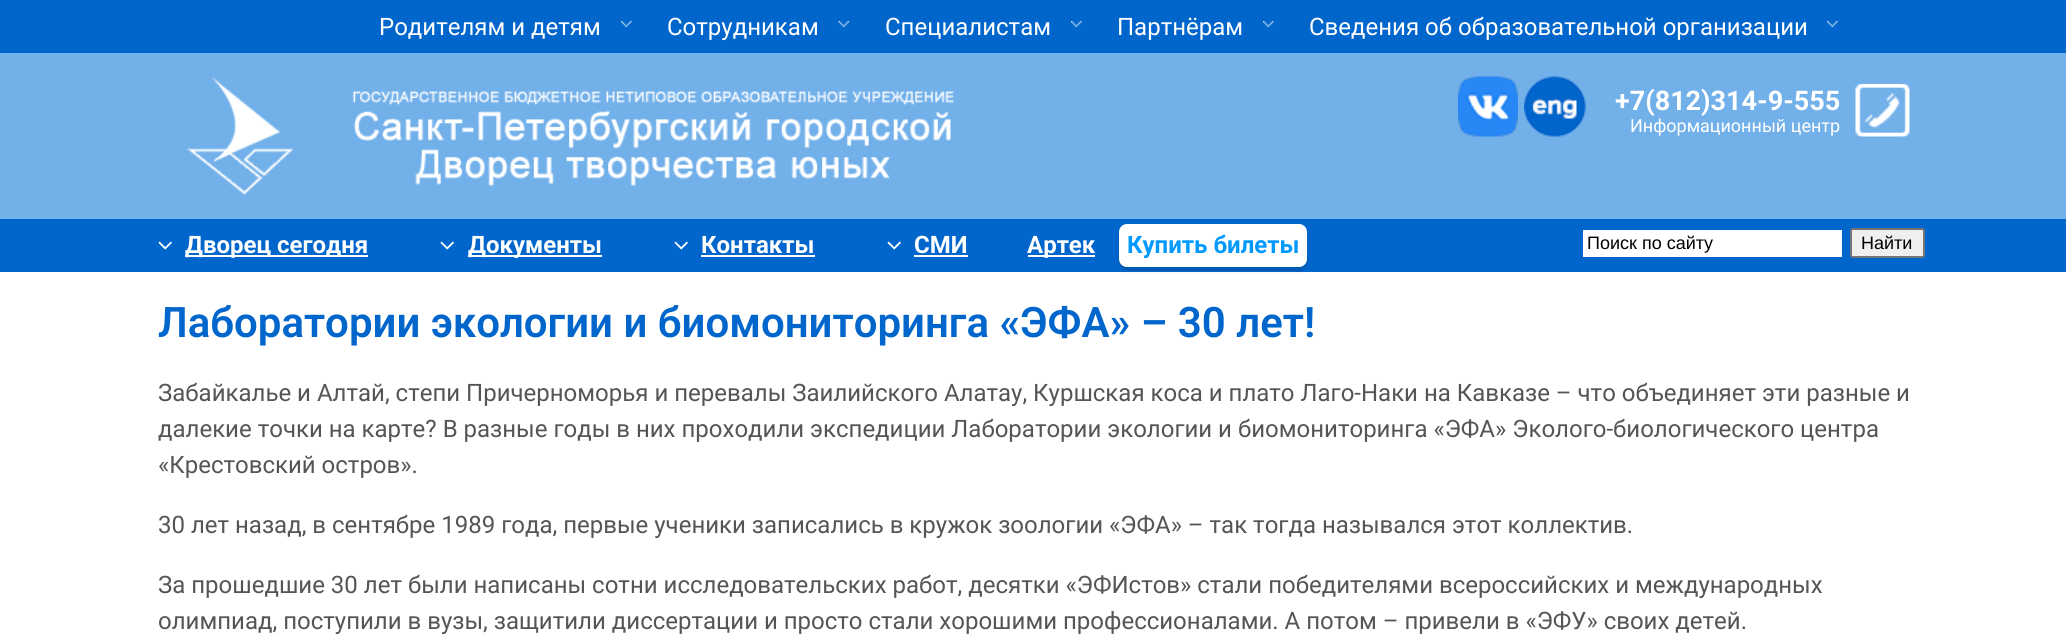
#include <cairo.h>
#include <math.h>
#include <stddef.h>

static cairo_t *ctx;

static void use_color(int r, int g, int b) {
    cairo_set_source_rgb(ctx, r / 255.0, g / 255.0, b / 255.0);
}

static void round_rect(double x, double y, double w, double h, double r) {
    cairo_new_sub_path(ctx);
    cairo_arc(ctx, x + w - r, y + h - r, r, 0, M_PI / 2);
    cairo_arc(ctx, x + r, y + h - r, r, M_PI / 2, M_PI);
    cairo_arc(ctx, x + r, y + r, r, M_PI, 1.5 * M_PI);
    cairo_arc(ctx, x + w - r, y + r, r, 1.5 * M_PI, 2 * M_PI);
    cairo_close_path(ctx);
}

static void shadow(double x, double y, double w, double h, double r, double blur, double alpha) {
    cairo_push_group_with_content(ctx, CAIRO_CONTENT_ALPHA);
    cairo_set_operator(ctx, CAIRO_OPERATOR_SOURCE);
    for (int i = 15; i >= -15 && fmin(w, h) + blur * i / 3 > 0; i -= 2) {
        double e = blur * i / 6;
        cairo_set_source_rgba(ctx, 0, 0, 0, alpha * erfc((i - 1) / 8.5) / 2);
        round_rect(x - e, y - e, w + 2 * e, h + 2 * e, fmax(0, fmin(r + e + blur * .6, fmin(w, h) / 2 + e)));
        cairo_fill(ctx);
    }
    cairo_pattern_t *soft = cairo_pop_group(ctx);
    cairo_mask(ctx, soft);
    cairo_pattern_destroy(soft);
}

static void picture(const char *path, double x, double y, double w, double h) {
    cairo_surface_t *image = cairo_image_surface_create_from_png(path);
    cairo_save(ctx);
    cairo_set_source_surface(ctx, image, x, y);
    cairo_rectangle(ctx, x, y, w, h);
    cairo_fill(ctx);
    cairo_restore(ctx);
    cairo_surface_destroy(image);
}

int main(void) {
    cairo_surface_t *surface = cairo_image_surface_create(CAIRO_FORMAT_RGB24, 2066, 634);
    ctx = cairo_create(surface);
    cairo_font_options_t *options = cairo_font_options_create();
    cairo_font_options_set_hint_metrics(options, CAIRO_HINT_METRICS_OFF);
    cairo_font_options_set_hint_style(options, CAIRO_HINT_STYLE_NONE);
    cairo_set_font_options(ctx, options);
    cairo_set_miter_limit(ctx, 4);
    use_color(255, 255, 255);
    cairo_paint(ctx);
    use_color(0, 102, 204);
    cairo_rectangle(ctx, 0, 0, 2066, 53);
    cairo_fill(ctx);
    cairo_select_font_face(ctx, "Roboto", CAIRO_FONT_SLANT_NORMAL, CAIRO_FONT_WEIGHT_NORMAL);
    cairo_set_font_size(ctx, 24);
    use_color(255, 255, 255);
    cairo_move_to(ctx, 379, 35);
    cairo_show_text(ctx, "Родителям и детям");
    picture("img1.png", 621, 21, 11, 6);
    cairo_move_to(ctx, 667, 35);
    cairo_show_text(ctx, "Сотрудникам");
    picture("img2.png", 838, 21, 12, 6);
    cairo_move_to(ctx, 885, 35);
    cairo_show_text(ctx, "Специалистам");
    picture("img3.png", 1071, 21, 11, 6);
    cairo_move_to(ctx, 1117, 35);
    cairo_show_text(ctx, "Партнёрам");
    picture("img4.png", 1263, 21, 11, 6);
    cairo_move_to(ctx, 1309, 35);
    cairo_show_text(ctx, "Сведения об образовательной организации");
    picture("img3.png", 1827, 21, 11, 6);
    use_color(114, 176, 234);
    cairo_rectangle(ctx, 0, 53, 2066, 166);
    cairo_fill(ctx);
    picture("img5.png", 186, 76, 769, 119);
    picture("img6.png", 1458, 76, 60, 61);
    picture("img7.png", 1524, 76, 62, 61);
    picture("img8.png", 1855, 84, 55, 53);
    cairo_select_font_face(ctx, "Roboto", CAIRO_FONT_SLANT_NORMAL, CAIRO_FONT_WEIGHT_BOLD);
    cairo_set_font_size(ctx, 27);
    use_color(255, 255, 255);
    cairo_move_to(ctx, 1615, 110);
    cairo_show_text(ctx, "+7(812)314-9-555");
    cairo_select_font_face(ctx, "Roboto", CAIRO_FONT_SLANT_NORMAL, CAIRO_FONT_WEIGHT_NORMAL);
    cairo_set_font_size(ctx, 18);
    cairo_move_to(ctx, 1630, 132);
    cairo_show_text(ctx, "Информационный центр");
    use_color(0, 102, 204);
    cairo_rectangle(ctx, 0, 219, 2066, 53);
    cairo_fill(ctx);
    picture("img9.png", 158, 241, 14, 9);
    use_color(255, 255, 255);
    cairo_rectangle(ctx, 185, 255, 183, 2);
    cairo_fill(ctx);
    cairo_select_font_face(ctx, "Roboto", CAIRO_FONT_SLANT_NORMAL, CAIRO_FONT_WEIGHT_BOLD);
    cairo_set_font_size(ctx, 24);
    cairo_move_to(ctx, 185, 253);
    cairo_show_text(ctx, "Дворец сегодня");
    picture("img9.png", 440, 241, 14, 9);
    cairo_rectangle(ctx, 468, 255, 134, 2);
    cairo_fill(ctx);
    cairo_move_to(ctx, 468, 253);
    cairo_show_text(ctx, "Документы");
    picture("img9.png", 674, 241, 14, 9);
    cairo_move_to(ctx, 701, 253);
    cairo_show_text(ctx, "Контакты");
    cairo_rectangle(ctx, 701, 255, 114, 2);
    cairo_fill(ctx);
    picture("img9.png", 887, 241, 14, 9);
    cairo_move_to(ctx, 914, 253);
    cairo_show_text(ctx, "СМИ");
    cairo_rectangle(ctx, 914, 255, 54, 2);
    cairo_fill(ctx);
    cairo_rectangle(ctx, 1028, 255, 67, 2);
    cairo_fill(ctx);
    cairo_move_to(ctx, 1027, 253);
    cairo_show_text(ctx, "Артек");
    use_color(0, 0, 0);
    shadow(1119, 228, 188, 44, 8, 2, 0.07);
    shadow(1119, 227, 188, 43, 8, 1.5, 0.07);
    use_color(255, 255, 255);
    round_rect(1119, 224, 188, 43, 8);
    cairo_fill(ctx);
    use_color(0, 153, 255);
    cairo_move_to(ctx, 1127, 253);
    cairo_show_text(ctx, "Купить билеты");
    use_color(255, 255, 255);
    cairo_rectangle(ctx, 1583, 230, 259, 27);
    cairo_fill(ctx);
    cairo_select_font_face(ctx, "Liberation Sans", CAIRO_FONT_SLANT_NORMAL, CAIRO_FONT_WEIGHT_NORMAL);
    cairo_set_font_size(ctx, 18);
    use_color(0, 0, 0);
    cairo_move_to(ctx, 1587, 249);
    cairo_show_text(ctx, "Поиск по сайту");
    use_color(239, 239, 239);
    round_rect(1851, 229, 73, 28, 2);
    cairo_fill_preserve(ctx);
    use_color(118, 118, 118);
    cairo_stroke(ctx);
    use_color(0, 0, 0);
    cairo_move_to(ctx, 1861, 249);
    cairo_show_text(ctx, "Найти");
    cairo_select_font_face(ctx, "Roboto SemiBold", CAIRO_FONT_SLANT_NORMAL, CAIRO_FONT_WEIGHT_NORMAL);
    cairo_set_font_size(ctx, 42);
    use_color(0, 102, 204);
    cairo_move_to(ctx, 158, 337);
    cairo_show_text(ctx, "Лаборатории экологии и биомониторинга «ЭФА» – 30 лет!");
    cairo_select_font_face(ctx, "Roboto", CAIRO_FONT_SLANT_NORMAL, CAIRO_FONT_WEIGHT_NORMAL);
    cairo_set_font_size(ctx, 24);
    use_color(85, 85, 85);
    cairo_move_to(ctx, 158, 401);
    cairo_show_text(ctx, "Забайкалье и Алтай, степи Причерноморья и перевалы Заилийского Алатау, Куршская коса и плато Лаго-Наки на Кавказе – что объединяет эти разные и");
    cairo_move_to(ctx, 158, 437);
    cairo_show_text(ctx, "далекие точки на карте? В разные годы в них проходили экспедиции Лаборатории экологии и биомониторинга «ЭФА» Эколого-биологического центра");
    cairo_move_to(ctx, 158, 473);
    cairo_show_text(ctx, "«Крестовский остров».");
    cairo_move_to(ctx, 158, 533);
    cairo_show_text(ctx, "30 лет назад, в сентябре 1989 года, первые ученики записались в кружок зоологии «ЭФА» – так тогда назывался этот коллектив.");
    cairo_move_to(ctx, 158, 593);
    cairo_show_text(ctx, "За прошедшие 30 лет были написаны сотни исследовательских работ, десятки «ЭФИстов» стали победителями всероссийских и международных");
    cairo_move_to(ctx, 158, 629);
    cairo_show_text(ctx, "олимпиад, поступили в вузы, защитили диссертации и просто стали хорошими профессионалами. А потом – привели в «ЭФУ» своих детей.");
    cairo_surface_write_to_png(surface, "result.png");
    cairo_font_options_destroy(options);
    cairo_destroy(ctx);
    cairo_surface_destroy(surface);
    return 0;
}
